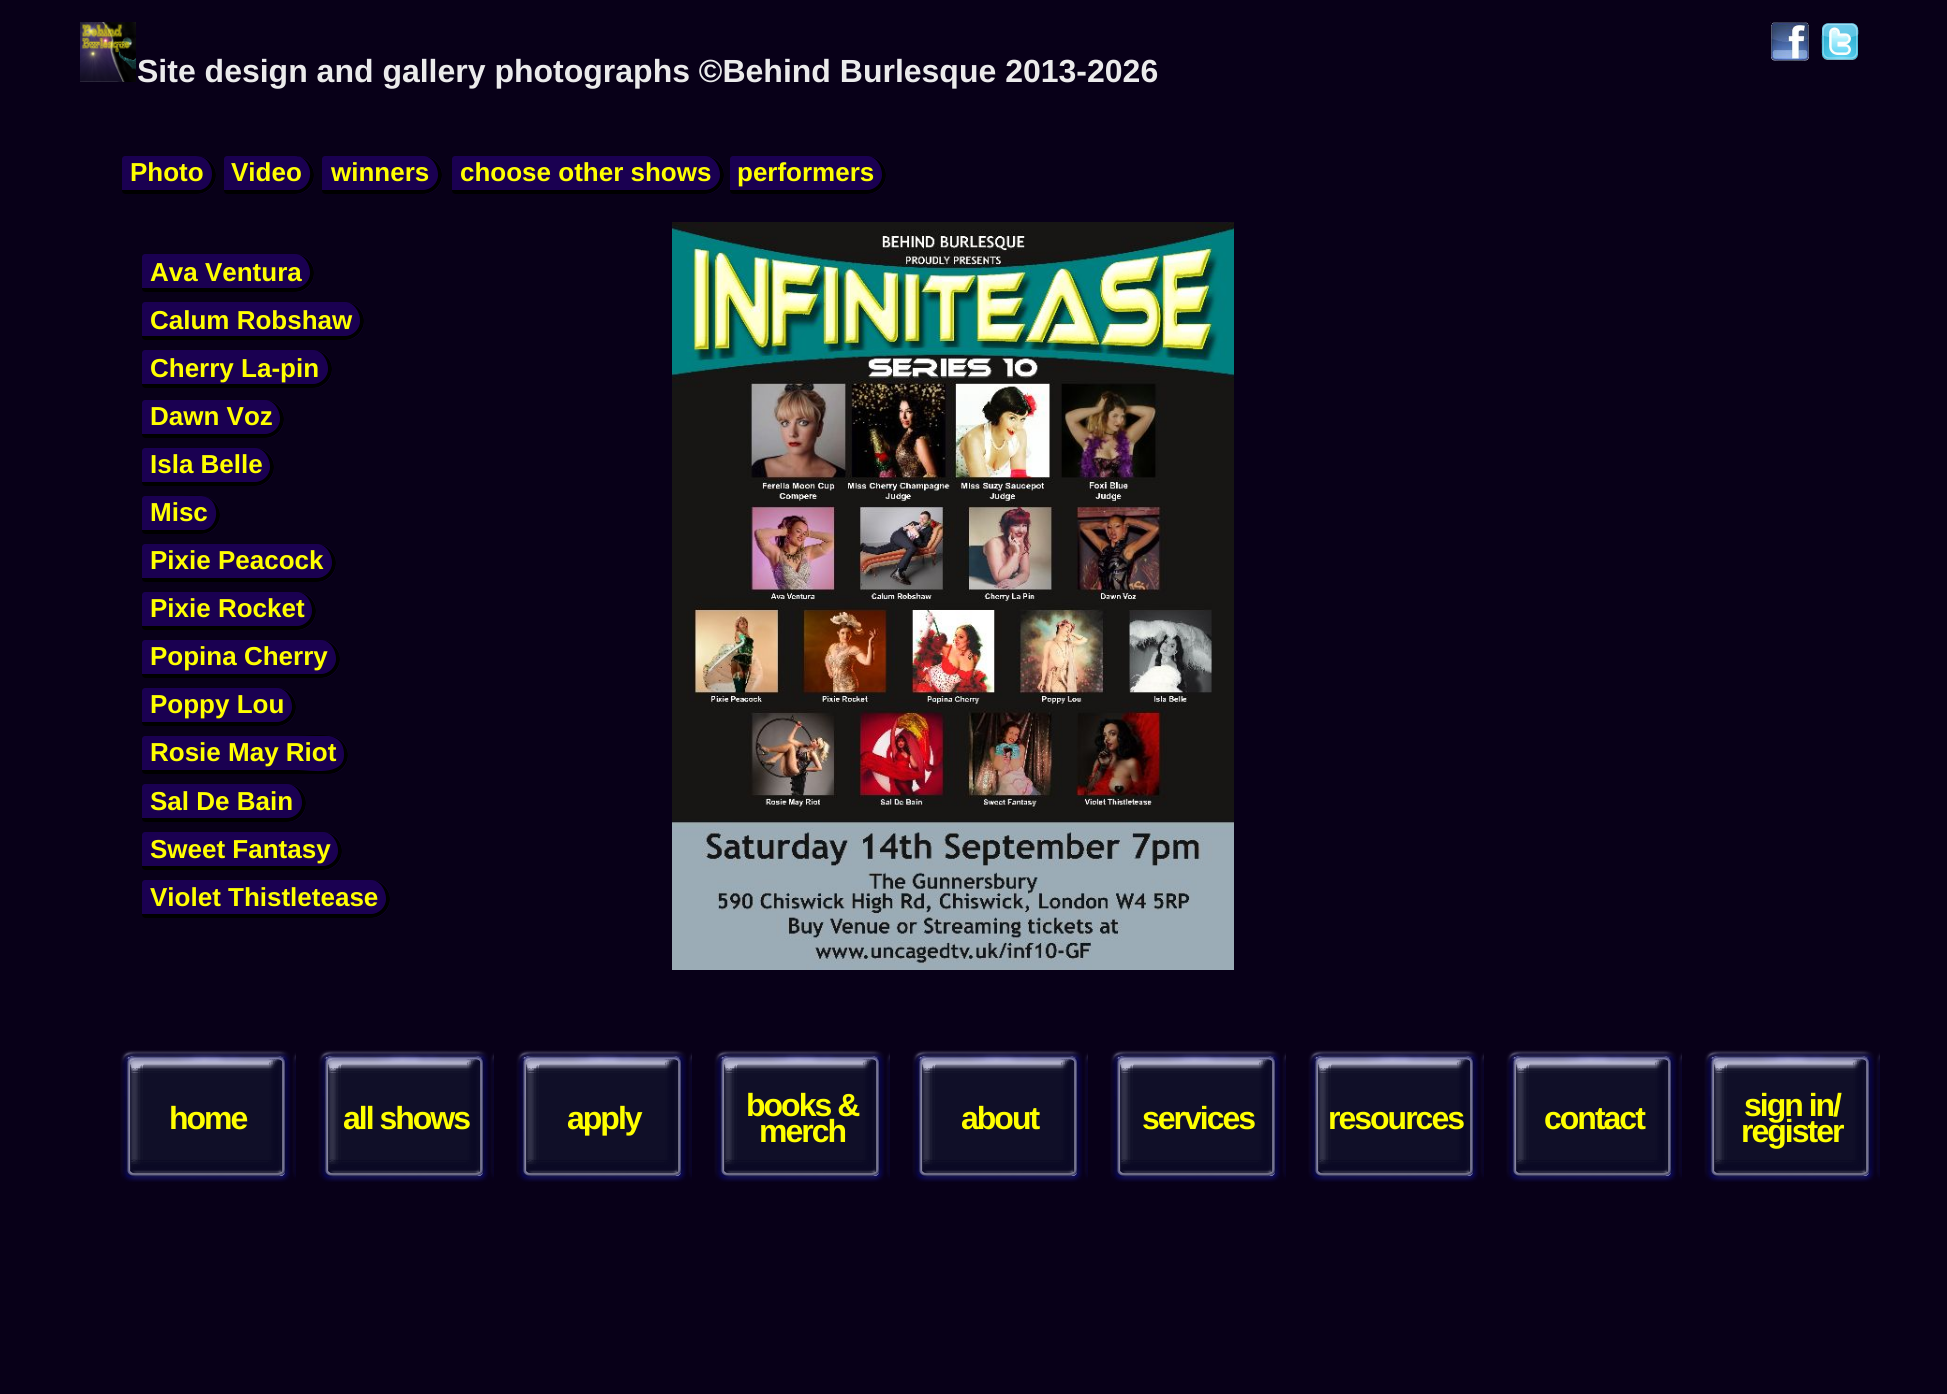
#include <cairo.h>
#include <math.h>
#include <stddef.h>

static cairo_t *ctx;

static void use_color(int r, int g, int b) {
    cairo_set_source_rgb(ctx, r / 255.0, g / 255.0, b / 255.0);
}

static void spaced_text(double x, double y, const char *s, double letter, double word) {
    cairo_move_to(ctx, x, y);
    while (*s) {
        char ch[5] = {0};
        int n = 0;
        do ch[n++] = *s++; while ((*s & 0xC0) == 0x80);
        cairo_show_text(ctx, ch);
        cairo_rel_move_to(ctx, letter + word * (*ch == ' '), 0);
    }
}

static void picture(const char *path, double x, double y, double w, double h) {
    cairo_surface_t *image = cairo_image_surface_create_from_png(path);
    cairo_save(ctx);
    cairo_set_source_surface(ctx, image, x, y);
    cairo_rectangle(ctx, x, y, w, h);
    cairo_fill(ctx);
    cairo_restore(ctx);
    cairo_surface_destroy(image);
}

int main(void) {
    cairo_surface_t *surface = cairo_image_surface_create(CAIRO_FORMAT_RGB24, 1947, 1394);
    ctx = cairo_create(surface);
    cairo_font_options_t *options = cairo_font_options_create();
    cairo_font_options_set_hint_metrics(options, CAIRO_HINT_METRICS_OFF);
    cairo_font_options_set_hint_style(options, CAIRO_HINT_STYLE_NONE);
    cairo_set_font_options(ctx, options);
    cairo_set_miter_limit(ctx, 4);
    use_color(8, 0, 24);
    cairo_paint(ctx);
    picture("img1.png", 1770, 22, 39, 39);
    picture("img2.png", 1821, 23, 38, 37);
    picture("img3.png", 80, 22, 56, 60);
    cairo_select_font_face(ctx, "Liberation Sans", CAIRO_FONT_SLANT_NORMAL, CAIRO_FONT_WEIGHT_BOLD);
    cairo_set_font_size(ctx, 32);
    use_color(235, 235, 235);
    cairo_move_to(ctx, 137, 82);
    cairo_show_text(ctx, "Site design and gallery photographs ©Behind Burlesque 2013-2026");
    use_color(26, 0, 81);
    cairo_new_path(ctx);
    cairo_move_to(ctx, 125, 156);
    cairo_line_to(ctx, 197, 156);
    cairo_curve_to(ctx, 207.5, 156, 216, 164.5, 216, 175);
    cairo_curve_to(ctx, 216, 185.5, 207.5, 194, 197, 194);
    cairo_line_to(ctx, 125, 194);
    cairo_curve_to(ctx, 123.5, 194, 122, 192.5, 122, 191);
    cairo_line_to(ctx, 122, 159);
    cairo_curve_to(ctx, 122, 157.5, 123.5, 156, 125, 156);
    cairo_close_path(ctx);
    cairo_fill(ctx);
    use_color(0, 0, 0);
    cairo_set_fill_rule(ctx, CAIRO_FILL_RULE_EVEN_ODD);
    cairo_new_path(ctx);
    cairo_move_to(ctx, 125, 156);
    cairo_line_to(ctx, 197, 156);
    cairo_curve_to(ctx, 207, 156, 216, 165, 216, 175);
    cairo_curve_to(ctx, 216, 185, 207, 194, 197, 194);
    cairo_line_to(ctx, 125, 194);
    cairo_curve_to(ctx, 123, 194, 122, 193, 122, 191);
    cairo_line_to(ctx, 122, 159);
    cairo_curve_to(ctx, 122, 157, 123, 156, 125, 156);
    cairo_close_path(ctx);
    cairo_move_to(ctx, 125, 156);
    cairo_line_to(ctx, 185, 156);
    cairo_curve_to(ctx, 197, 156, 206, 154, 211, 168);
    cairo_curve_to(ctx, 214, 177, 210, 188, 200, 190);
    cairo_line_to(ctx, 122, 190);
    cairo_line_to(ctx, 122, 159);
    cairo_curve_to(ctx, 122, 157, 123, 156, 125, 156);
    cairo_close_path(ctx);
    cairo_fill(ctx);
    cairo_set_font_size(ctx, 26);
    use_color(255, 255, 0);
    cairo_move_to(ctx, 130, 181);
    cairo_show_text(ctx, "Photo");
    use_color(26, 0, 81);
    cairo_new_path(ctx);
    cairo_move_to(ctx, 227, 156);
    cairo_line_to(ctx, 295, 156);
    cairo_curve_to(ctx, 305.5, 156, 314, 164.5, 314, 175);
    cairo_curve_to(ctx, 314, 185.5, 305.5, 194, 295, 194);
    cairo_line_to(ctx, 227, 194);
    cairo_curve_to(ctx, 225.5, 194, 224, 192.5, 224, 191);
    cairo_line_to(ctx, 224, 159);
    cairo_curve_to(ctx, 224, 157.5, 225.5, 156, 227, 156);
    cairo_close_path(ctx);
    cairo_fill(ctx);
    use_color(0, 0, 0);
    cairo_new_path(ctx);
    cairo_move_to(ctx, 227, 156);
    cairo_line_to(ctx, 295, 156);
    cairo_curve_to(ctx, 305, 156, 314, 165, 314, 175);
    cairo_curve_to(ctx, 314, 185, 305, 194, 295, 194);
    cairo_line_to(ctx, 227, 194);
    cairo_curve_to(ctx, 225, 194, 224, 193, 224, 191);
    cairo_line_to(ctx, 224, 159);
    cairo_curve_to(ctx, 224, 157, 225, 156, 227, 156);
    cairo_close_path(ctx);
    cairo_move_to(ctx, 227, 156);
    cairo_line_to(ctx, 298, 156);
    cairo_curve_to(ctx, 305, 158, 309, 165, 310, 171);
    cairo_curve_to(ctx, 311, 179, 307, 188, 298, 190);
    cairo_line_to(ctx, 224, 190);
    cairo_line_to(ctx, 224, 159);
    cairo_curve_to(ctx, 224, 157, 225, 156, 227, 156);
    cairo_close_path(ctx);
    cairo_fill(ctx);
    use_color(255, 255, 0);
    cairo_move_to(ctx, 231, 181);
    cairo_show_text(ctx, "Video");
    use_color(26, 0, 81);
    cairo_new_path(ctx);
    cairo_move_to(ctx, 325, 156);
    cairo_line_to(ctx, 423, 156);
    cairo_curve_to(ctx, 433.5, 156, 442, 164.5, 442, 175);
    cairo_curve_to(ctx, 442, 185.5, 433.5, 194, 423, 194);
    cairo_line_to(ctx, 325, 194);
    cairo_curve_to(ctx, 323.5, 194, 322, 192.5, 322, 191);
    cairo_line_to(ctx, 322, 159);
    cairo_curve_to(ctx, 322, 157.5, 323.5, 156, 325, 156);
    cairo_close_path(ctx);
    cairo_fill(ctx);
    use_color(0, 0, 0);
    cairo_new_path(ctx);
    cairo_move_to(ctx, 325, 156);
    cairo_line_to(ctx, 423, 156);
    cairo_curve_to(ctx, 433, 156, 442, 165, 442, 175);
    cairo_curve_to(ctx, 442, 185, 433, 194, 423, 194);
    cairo_line_to(ctx, 325, 194);
    cairo_curve_to(ctx, 323, 194, 322, 193, 322, 191);
    cairo_line_to(ctx, 322, 159);
    cairo_curve_to(ctx, 322, 157, 323, 156, 325, 156);
    cairo_close_path(ctx);
    cairo_move_to(ctx, 325, 156);
    cairo_line_to(ctx, 423, 156);
    cairo_curve_to(ctx, 431, 156, 438, 165, 438, 175);
    cairo_curve_to(ctx, 438, 183, 431, 190, 423, 190);
    cairo_line_to(ctx, 322, 190);
    cairo_line_to(ctx, 322, 159);
    cairo_curve_to(ctx, 322, 157, 323, 156, 325, 156);
    cairo_close_path(ctx);
    cairo_fill(ctx);
    use_color(255, 255, 0);
    cairo_move_to(ctx, 331, 181);
    cairo_show_text(ctx, "winners");
    use_color(26, 0, 81);
    cairo_new_path(ctx);
    cairo_move_to(ctx, 455, 156);
    cairo_line_to(ctx, 705, 156);
    cairo_curve_to(ctx, 715.5, 156, 724, 164.5, 724, 175);
    cairo_curve_to(ctx, 724, 185.5, 715.5, 194, 705, 194);
    cairo_line_to(ctx, 455, 194);
    cairo_curve_to(ctx, 453.5, 194, 452, 192.5, 452, 191);
    cairo_line_to(ctx, 452, 159);
    cairo_curve_to(ctx, 452, 157.5, 453.5, 156, 455, 156);
    cairo_close_path(ctx);
    cairo_fill(ctx);
    use_color(0, 0, 0);
    cairo_new_path(ctx);
    cairo_move_to(ctx, 455, 156);
    cairo_line_to(ctx, 705, 156);
    cairo_curve_to(ctx, 715, 156, 724, 165, 724, 175);
    cairo_curve_to(ctx, 724, 185, 715, 194, 705, 194);
    cairo_line_to(ctx, 455, 194);
    cairo_curve_to(ctx, 453, 194, 452, 193, 452, 191);
    cairo_line_to(ctx, 452, 159);
    cairo_curve_to(ctx, 452, 157, 453, 156, 455, 156);
    cairo_close_path(ctx);
    cairo_move_to(ctx, 455, 156);
    cairo_line_to(ctx, 705, 156);
    cairo_curve_to(ctx, 713, 156, 720, 165, 720, 175);
    cairo_curve_to(ctx, 720, 183, 713, 190, 705, 190);
    cairo_line_to(ctx, 452, 190);
    cairo_line_to(ctx, 452, 159);
    cairo_curve_to(ctx, 452, 157, 453, 156, 455, 156);
    cairo_close_path(ctx);
    cairo_fill(ctx);
    use_color(255, 255, 0);
    cairo_move_to(ctx, 460, 181);
    cairo_show_text(ctx, "choose other shows");
    use_color(26, 0, 81);
    cairo_new_path(ctx);
    cairo_move_to(ctx, 733, 156);
    cairo_line_to(ctx, 867, 156);
    cairo_curve_to(ctx, 877.5, 156, 886, 164.5, 886, 175);
    cairo_curve_to(ctx, 886, 185.5, 877.5, 194, 867, 194);
    cairo_line_to(ctx, 733, 194);
    cairo_curve_to(ctx, 731.5, 194, 730, 192.5, 730, 191);
    cairo_line_to(ctx, 730, 159);
    cairo_curve_to(ctx, 730, 157.5, 731.5, 156, 733, 156);
    cairo_close_path(ctx);
    cairo_fill(ctx);
    use_color(0, 0, 0);
    cairo_new_path(ctx);
    cairo_move_to(ctx, 733, 156);
    cairo_line_to(ctx, 867, 156);
    cairo_curve_to(ctx, 877, 156, 886, 165, 886, 175);
    cairo_curve_to(ctx, 886, 185, 877, 194, 867, 194);
    cairo_line_to(ctx, 733, 194);
    cairo_curve_to(ctx, 731, 194, 730, 193, 730, 191);
    cairo_line_to(ctx, 730, 159);
    cairo_curve_to(ctx, 730, 157, 731, 156, 733, 156);
    cairo_close_path(ctx);
    cairo_move_to(ctx, 733, 156);
    cairo_line_to(ctx, 867, 156);
    cairo_curve_to(ctx, 875, 156, 882, 165, 882, 175);
    cairo_curve_to(ctx, 882, 183, 875, 190, 867, 190);
    cairo_line_to(ctx, 730, 190);
    cairo_line_to(ctx, 730, 159);
    cairo_curve_to(ctx, 730, 157, 731, 156, 733, 156);
    cairo_close_path(ctx);
    cairo_fill(ctx);
    use_color(255, 255, 0);
    cairo_move_to(ctx, 737, 181);
    cairo_show_text(ctx, "performers");
    use_color(26, 0, 81);
    cairo_new_path(ctx);
    cairo_move_to(ctx, 145, 254);
    cairo_line_to(ctx, 295, 254);
    cairo_curve_to(ctx, 305.5, 254, 314, 262.5, 314, 273);
    cairo_curve_to(ctx, 314, 283.5, 305.5, 292, 295, 292);
    cairo_line_to(ctx, 145, 292);
    cairo_curve_to(ctx, 143.5, 292, 142, 290.5, 142, 289);
    cairo_line_to(ctx, 142, 257);
    cairo_curve_to(ctx, 142, 255.5, 143.5, 254, 145, 254);
    cairo_close_path(ctx);
    cairo_fill(ctx);
    use_color(0, 0, 0);
    cairo_new_path(ctx);
    cairo_move_to(ctx, 145, 254);
    cairo_line_to(ctx, 295, 254);
    cairo_curve_to(ctx, 305, 254, 314, 263, 314, 273);
    cairo_curve_to(ctx, 314, 283, 305, 292, 295, 292);
    cairo_line_to(ctx, 145, 292);
    cairo_curve_to(ctx, 143, 292, 142, 291, 142, 289);
    cairo_line_to(ctx, 142, 257);
    cairo_curve_to(ctx, 142, 255, 143, 254, 145, 254);
    cairo_close_path(ctx);
    cairo_move_to(ctx, 145, 254);
    cairo_line_to(ctx, 295, 254);
    cairo_curve_to(ctx, 303, 254, 310, 263, 310, 273);
    cairo_curve_to(ctx, 310, 281, 303, 288, 295, 288);
    cairo_line_to(ctx, 142, 288);
    cairo_line_to(ctx, 142, 257);
    cairo_curve_to(ctx, 142, 255, 143, 254, 145, 254);
    cairo_close_path(ctx);
    cairo_fill(ctx);
    use_color(255, 255, 0);
    cairo_move_to(ctx, 150, 281);
    cairo_show_text(ctx, "Ava Ventura");
    use_color(26, 0, 81);
    cairo_new_path(ctx);
    cairo_move_to(ctx, 145, 302);
    cairo_line_to(ctx, 345, 302);
    cairo_curve_to(ctx, 355.5, 302, 364, 310.5, 364, 321);
    cairo_curve_to(ctx, 364, 331.5, 355.5, 340, 345, 340);
    cairo_line_to(ctx, 145, 340);
    cairo_curve_to(ctx, 143.5, 340, 142, 338.5, 142, 337);
    cairo_line_to(ctx, 142, 305);
    cairo_curve_to(ctx, 142, 303.5, 143.5, 302, 145, 302);
    cairo_close_path(ctx);
    cairo_fill(ctx);
    use_color(0, 0, 0);
    cairo_new_path(ctx);
    cairo_move_to(ctx, 145, 302);
    cairo_line_to(ctx, 345, 302);
    cairo_curve_to(ctx, 355, 302, 364, 311, 364, 321);
    cairo_curve_to(ctx, 364, 331, 355, 340, 345, 340);
    cairo_line_to(ctx, 145, 340);
    cairo_curve_to(ctx, 143, 340, 142, 339, 142, 337);
    cairo_line_to(ctx, 142, 305);
    cairo_curve_to(ctx, 142, 303, 143, 302, 145, 302);
    cairo_close_path(ctx);
    cairo_move_to(ctx, 145, 302);
    cairo_line_to(ctx, 345, 302);
    cairo_curve_to(ctx, 353, 302, 360, 311, 360, 321);
    cairo_curve_to(ctx, 360, 329, 353, 336, 345, 336);
    cairo_line_to(ctx, 142, 336);
    cairo_line_to(ctx, 142, 305);
    cairo_curve_to(ctx, 142, 303, 143, 302, 145, 302);
    cairo_close_path(ctx);
    cairo_fill(ctx);
    use_color(255, 255, 0);
    cairo_move_to(ctx, 150, 329);
    cairo_show_text(ctx, "Calum Robshaw");
    use_color(26, 0, 81);
    cairo_new_path(ctx);
    cairo_move_to(ctx, 145, 350);
    cairo_line_to(ctx, 313, 350);
    cairo_curve_to(ctx, 323.5, 350, 332, 358.5, 332, 369);
    cairo_curve_to(ctx, 332, 379.5, 323.5, 388, 313, 388);
    cairo_line_to(ctx, 145, 388);
    cairo_curve_to(ctx, 143.5, 388, 142, 386.5, 142, 385);
    cairo_line_to(ctx, 142, 353);
    cairo_curve_to(ctx, 142, 351.5, 143.5, 350, 145, 350);
    cairo_close_path(ctx);
    cairo_fill(ctx);
    use_color(0, 0, 0);
    cairo_new_path(ctx);
    cairo_move_to(ctx, 145, 350);
    cairo_line_to(ctx, 313, 350);
    cairo_curve_to(ctx, 323, 350, 332, 359, 332, 369);
    cairo_curve_to(ctx, 332, 379, 323, 388, 313, 388);
    cairo_line_to(ctx, 145, 388);
    cairo_curve_to(ctx, 143, 388, 142, 387, 142, 385);
    cairo_line_to(ctx, 142, 353);
    cairo_curve_to(ctx, 142, 351, 143, 350, 145, 350);
    cairo_close_path(ctx);
    cairo_move_to(ctx, 145, 350);
    cairo_line_to(ctx, 313, 350);
    cairo_curve_to(ctx, 321, 350, 328, 359, 328, 369);
    cairo_curve_to(ctx, 328, 377, 321, 384, 313, 384);
    cairo_line_to(ctx, 142, 384);
    cairo_line_to(ctx, 142, 353);
    cairo_curve_to(ctx, 142, 351, 143, 350, 145, 350);
    cairo_close_path(ctx);
    cairo_fill(ctx);
    use_color(255, 255, 0);
    cairo_move_to(ctx, 150, 377);
    cairo_show_text(ctx, "Cherry La-pin");
    use_color(26, 0, 81);
    cairo_new_path(ctx);
    cairo_move_to(ctx, 145, 400);
    cairo_line_to(ctx, 265, 400);
    cairo_curve_to(ctx, 275.5, 400, 284, 408.5, 284, 419);
    cairo_curve_to(ctx, 284, 429.5, 275.5, 438, 265, 438);
    cairo_line_to(ctx, 145, 438);
    cairo_curve_to(ctx, 143.5, 438, 142, 436.5, 142, 435);
    cairo_line_to(ctx, 142, 403);
    cairo_curve_to(ctx, 142, 401.5, 143.5, 400, 145, 400);
    cairo_close_path(ctx);
    cairo_fill(ctx);
    use_color(0, 0, 0);
    cairo_new_path(ctx);
    cairo_move_to(ctx, 145, 400);
    cairo_line_to(ctx, 265, 400);
    cairo_curve_to(ctx, 275, 400, 284, 409, 284, 419);
    cairo_curve_to(ctx, 284, 429, 275, 438, 265, 438);
    cairo_line_to(ctx, 145, 438);
    cairo_curve_to(ctx, 143, 438, 142, 437, 142, 435);
    cairo_line_to(ctx, 142, 403);
    cairo_curve_to(ctx, 142, 401, 143, 400, 145, 400);
    cairo_close_path(ctx);
    cairo_move_to(ctx, 145, 400);
    cairo_line_to(ctx, 265, 400);
    cairo_curve_to(ctx, 273, 400, 280, 409, 280, 419);
    cairo_curve_to(ctx, 280, 427, 273, 434, 265, 434);
    cairo_line_to(ctx, 142, 434);
    cairo_line_to(ctx, 142, 403);
    cairo_curve_to(ctx, 142, 401, 143, 400, 145, 400);
    cairo_close_path(ctx);
    cairo_fill(ctx);
    use_color(255, 255, 0);
    cairo_move_to(ctx, 150, 425);
    cairo_show_text(ctx, "Dawn Voz");
    use_color(26, 0, 81);
    cairo_new_path(ctx);
    cairo_move_to(ctx, 145, 448);
    cairo_line_to(ctx, 255, 448);
    cairo_curve_to(ctx, 265.5, 448, 274, 456.5, 274, 467);
    cairo_curve_to(ctx, 274, 477.5, 265.5, 486, 255, 486);
    cairo_line_to(ctx, 145, 486);
    cairo_curve_to(ctx, 143.5, 486, 142, 484.5, 142, 483);
    cairo_line_to(ctx, 142, 451);
    cairo_curve_to(ctx, 142, 449.5, 143.5, 448, 145, 448);
    cairo_close_path(ctx);
    cairo_fill(ctx);
    use_color(0, 0, 0);
    cairo_new_path(ctx);
    cairo_move_to(ctx, 145, 448);
    cairo_line_to(ctx, 255, 448);
    cairo_curve_to(ctx, 265, 448, 274, 457, 274, 467);
    cairo_curve_to(ctx, 274, 477, 265, 486, 255, 486);
    cairo_line_to(ctx, 145, 486);
    cairo_curve_to(ctx, 143, 486, 142, 485, 142, 483);
    cairo_line_to(ctx, 142, 451);
    cairo_curve_to(ctx, 142, 449, 143, 448, 145, 448);
    cairo_close_path(ctx);
    cairo_move_to(ctx, 145, 448);
    cairo_line_to(ctx, 255, 448);
    cairo_curve_to(ctx, 263, 448, 270, 457, 270, 467);
    cairo_curve_to(ctx, 270, 475, 263, 482, 255, 482);
    cairo_line_to(ctx, 142, 482);
    cairo_line_to(ctx, 142, 451);
    cairo_curve_to(ctx, 142, 449, 143, 448, 145, 448);
    cairo_close_path(ctx);
    cairo_fill(ctx);
    use_color(255, 255, 0);
    cairo_move_to(ctx, 150, 473);
    cairo_show_text(ctx, "Isla Belle");
    use_color(26, 0, 81);
    cairo_new_path(ctx);
    cairo_move_to(ctx, 145, 496);
    cairo_line_to(ctx, 201, 496);
    cairo_curve_to(ctx, 211.5, 496, 220, 504.5, 220, 515);
    cairo_curve_to(ctx, 220, 525.5, 211.5, 534, 201, 534);
    cairo_line_to(ctx, 145, 534);
    cairo_curve_to(ctx, 143.5, 534, 142, 532.5, 142, 531);
    cairo_line_to(ctx, 142, 499);
    cairo_curve_to(ctx, 142, 497.5, 143.5, 496, 145, 496);
    cairo_close_path(ctx);
    cairo_fill(ctx);
    use_color(0, 0, 0);
    cairo_new_path(ctx);
    cairo_move_to(ctx, 145, 496);
    cairo_line_to(ctx, 201, 496);
    cairo_curve_to(ctx, 211, 496, 220, 505, 220, 515);
    cairo_curve_to(ctx, 220, 525, 211, 534, 201, 534);
    cairo_line_to(ctx, 145, 534);
    cairo_curve_to(ctx, 143, 534, 142, 533, 142, 531);
    cairo_line_to(ctx, 142, 499);
    cairo_curve_to(ctx, 142, 497, 143, 496, 145, 496);
    cairo_close_path(ctx);
    cairo_move_to(ctx, 145, 496);
    cairo_line_to(ctx, 182, 496);
    cairo_curve_to(ctx, 197, 496, 213, 492, 216, 511);
    cairo_curve_to(ctx, 217, 519, 213, 528, 204, 530);
    cairo_line_to(ctx, 142, 530);
    cairo_line_to(ctx, 142, 499);
    cairo_curve_to(ctx, 142, 497, 143, 496, 145, 496);
    cairo_close_path(ctx);
    cairo_fill(ctx);
    use_color(255, 255, 0);
    cairo_move_to(ctx, 150, 521);
    cairo_show_text(ctx, "Misc");
    use_color(26, 0, 81);
    cairo_new_path(ctx);
    cairo_move_to(ctx, 145, 544);
    cairo_line_to(ctx, 317, 544);
    cairo_curve_to(ctx, 327.5, 544, 336, 552.5, 336, 563);
    cairo_curve_to(ctx, 336, 573.5, 327.5, 582, 317, 582);
    cairo_line_to(ctx, 145, 582);
    cairo_curve_to(ctx, 143.5, 582, 142, 580.5, 142, 579);
    cairo_line_to(ctx, 142, 547);
    cairo_curve_to(ctx, 142, 545.5, 143.5, 544, 145, 544);
    cairo_close_path(ctx);
    cairo_fill(ctx);
    use_color(0, 0, 0);
    cairo_new_path(ctx);
    cairo_move_to(ctx, 145, 544);
    cairo_line_to(ctx, 317, 544);
    cairo_curve_to(ctx, 327, 544, 336, 553, 336, 563);
    cairo_curve_to(ctx, 336, 573, 327, 582, 317, 582);
    cairo_line_to(ctx, 145, 582);
    cairo_curve_to(ctx, 143, 582, 142, 581, 142, 579);
    cairo_line_to(ctx, 142, 547);
    cairo_curve_to(ctx, 142, 545, 143, 544, 145, 544);
    cairo_close_path(ctx);
    cairo_move_to(ctx, 145, 544);
    cairo_line_to(ctx, 317, 544);
    cairo_curve_to(ctx, 325, 544, 332, 553, 332, 563);
    cairo_curve_to(ctx, 332, 571, 325, 578, 317, 578);
    cairo_line_to(ctx, 142, 578);
    cairo_line_to(ctx, 142, 547);
    cairo_curve_to(ctx, 142, 545, 143, 544, 145, 544);
    cairo_close_path(ctx);
    cairo_fill(ctx);
    use_color(255, 255, 0);
    cairo_move_to(ctx, 150, 569);
    cairo_show_text(ctx, "Pixie Peacock");
    use_color(26, 0, 81);
    cairo_new_path(ctx);
    cairo_move_to(ctx, 145, 592);
    cairo_line_to(ctx, 297, 592);
    cairo_curve_to(ctx, 307.5, 592, 316, 600.5, 316, 611);
    cairo_curve_to(ctx, 316, 621.5, 307.5, 630, 297, 630);
    cairo_line_to(ctx, 145, 630);
    cairo_curve_to(ctx, 143.5, 630, 142, 628.5, 142, 627);
    cairo_line_to(ctx, 142, 595);
    cairo_curve_to(ctx, 142, 593.5, 143.5, 592, 145, 592);
    cairo_close_path(ctx);
    cairo_fill(ctx);
    use_color(0, 0, 0);
    cairo_new_path(ctx);
    cairo_move_to(ctx, 145, 592);
    cairo_line_to(ctx, 297, 592);
    cairo_curve_to(ctx, 307, 592, 316, 601, 316, 611);
    cairo_curve_to(ctx, 316, 621, 307, 630, 297, 630);
    cairo_line_to(ctx, 145, 630);
    cairo_curve_to(ctx, 143, 630, 142, 629, 142, 627);
    cairo_line_to(ctx, 142, 595);
    cairo_curve_to(ctx, 142, 593, 143, 592, 145, 592);
    cairo_close_path(ctx);
    cairo_move_to(ctx, 145, 592);
    cairo_line_to(ctx, 297, 592);
    cairo_curve_to(ctx, 305, 592, 312, 601, 312, 611);
    cairo_curve_to(ctx, 312, 619, 305, 626, 297, 626);
    cairo_line_to(ctx, 142, 626);
    cairo_line_to(ctx, 142, 595);
    cairo_curve_to(ctx, 142, 593, 143, 592, 145, 592);
    cairo_close_path(ctx);
    cairo_fill(ctx);
    use_color(255, 255, 0);
    cairo_move_to(ctx, 150, 617);
    cairo_show_text(ctx, "Pixie Rocket");
    use_color(26, 0, 81);
    cairo_new_path(ctx);
    cairo_move_to(ctx, 145, 640);
    cairo_line_to(ctx, 321, 640);
    cairo_curve_to(ctx, 331.5, 640, 340, 648.5, 340, 659);
    cairo_curve_to(ctx, 340, 669.5, 331.5, 678, 321, 678);
    cairo_line_to(ctx, 145, 678);
    cairo_curve_to(ctx, 143.5, 678, 142, 676.5, 142, 675);
    cairo_line_to(ctx, 142, 643);
    cairo_curve_to(ctx, 142, 641.5, 143.5, 640, 145, 640);
    cairo_close_path(ctx);
    cairo_fill(ctx);
    use_color(0, 0, 0);
    cairo_new_path(ctx);
    cairo_move_to(ctx, 145, 640);
    cairo_line_to(ctx, 321, 640);
    cairo_curve_to(ctx, 331, 640, 340, 649, 340, 659);
    cairo_curve_to(ctx, 340, 669, 331, 678, 321, 678);
    cairo_line_to(ctx, 145, 678);
    cairo_curve_to(ctx, 143, 678, 142, 677, 142, 675);
    cairo_line_to(ctx, 142, 643);
    cairo_curve_to(ctx, 142, 641, 143, 640, 145, 640);
    cairo_close_path(ctx);
    cairo_move_to(ctx, 145, 640);
    cairo_line_to(ctx, 321, 640);
    cairo_curve_to(ctx, 329, 640, 336, 649, 336, 659);
    cairo_curve_to(ctx, 336, 667, 329, 674, 321, 674);
    cairo_line_to(ctx, 142, 674);
    cairo_line_to(ctx, 142, 643);
    cairo_curve_to(ctx, 142, 641, 143, 640, 145, 640);
    cairo_close_path(ctx);
    cairo_fill(ctx);
    use_color(255, 255, 0);
    cairo_move_to(ctx, 150, 665);
    cairo_show_text(ctx, "Popina Cherry");
    use_color(26, 0, 81);
    cairo_new_path(ctx);
    cairo_move_to(ctx, 145, 688);
    cairo_line_to(ctx, 277, 688);
    cairo_curve_to(ctx, 287.5, 688, 296, 696.5, 296, 707);
    cairo_curve_to(ctx, 296, 717.5, 287.5, 726, 277, 726);
    cairo_line_to(ctx, 145, 726);
    cairo_curve_to(ctx, 143.5, 726, 142, 724.5, 142, 723);
    cairo_line_to(ctx, 142, 691);
    cairo_curve_to(ctx, 142, 689.5, 143.5, 688, 145, 688);
    cairo_close_path(ctx);
    cairo_fill(ctx);
    use_color(0, 0, 0);
    cairo_new_path(ctx);
    cairo_move_to(ctx, 145, 688);
    cairo_line_to(ctx, 277, 688);
    cairo_curve_to(ctx, 287, 688, 296, 697, 296, 707);
    cairo_curve_to(ctx, 296, 717, 287, 726, 277, 726);
    cairo_line_to(ctx, 145, 726);
    cairo_curve_to(ctx, 143, 726, 142, 725, 142, 723);
    cairo_line_to(ctx, 142, 691);
    cairo_curve_to(ctx, 142, 689, 143, 688, 145, 688);
    cairo_close_path(ctx);
    cairo_move_to(ctx, 145, 688);
    cairo_line_to(ctx, 277, 688);
    cairo_curve_to(ctx, 285, 688, 292, 697, 292, 707);
    cairo_curve_to(ctx, 292, 715, 285, 722, 277, 722);
    cairo_line_to(ctx, 142, 722);
    cairo_line_to(ctx, 142, 691);
    cairo_curve_to(ctx, 142, 689, 143, 688, 145, 688);
    cairo_close_path(ctx);
    cairo_fill(ctx);
    use_color(255, 255, 0);
    cairo_move_to(ctx, 150, 713);
    cairo_show_text(ctx, "Poppy Lou");
    use_color(26, 0, 81);
    cairo_new_path(ctx);
    cairo_move_to(ctx, 145, 736);
    cairo_line_to(ctx, 329, 736);
    cairo_curve_to(ctx, 339.5, 736, 348, 744.5, 348, 755);
    cairo_curve_to(ctx, 348, 765.5, 339.5, 774, 329, 774);
    cairo_line_to(ctx, 145, 774);
    cairo_curve_to(ctx, 143.5, 774, 142, 772.5, 142, 771);
    cairo_line_to(ctx, 142, 739);
    cairo_curve_to(ctx, 142, 737.5, 143.5, 736, 145, 736);
    cairo_close_path(ctx);
    cairo_fill(ctx);
    use_color(0, 0, 0);
    cairo_new_path(ctx);
    cairo_move_to(ctx, 145, 736);
    cairo_line_to(ctx, 329, 736);
    cairo_curve_to(ctx, 339, 736, 348, 745, 348, 755);
    cairo_curve_to(ctx, 348, 765, 339, 774, 329, 774);
    cairo_line_to(ctx, 145, 774);
    cairo_curve_to(ctx, 143, 774, 142, 773, 142, 771);
    cairo_line_to(ctx, 142, 739);
    cairo_curve_to(ctx, 142, 737, 143, 736, 145, 736);
    cairo_close_path(ctx);
    cairo_move_to(ctx, 145, 736);
    cairo_line_to(ctx, 298, 736);
    cairo_curve_to(ctx, 316, 736, 344, 729, 344, 755);
    cairo_curve_to(ctx, 344, 777, 309, 770, 298, 770);
    cairo_line_to(ctx, 142, 770);
    cairo_line_to(ctx, 142, 739);
    cairo_curve_to(ctx, 142, 737, 143, 736, 145, 736);
    cairo_close_path(ctx);
    cairo_fill(ctx);
    use_color(255, 255, 0);
    cairo_move_to(ctx, 150, 761);
    cairo_show_text(ctx, "Rosie May Riot");
    use_color(26, 0, 81);
    cairo_new_path(ctx);
    cairo_move_to(ctx, 145, 784);
    cairo_line_to(ctx, 287, 784);
    cairo_curve_to(ctx, 297.5, 784, 306, 792.5, 306, 803);
    cairo_curve_to(ctx, 306, 813.5, 297.5, 822, 287, 822);
    cairo_line_to(ctx, 145, 822);
    cairo_curve_to(ctx, 143.5, 822, 142, 820.5, 142, 819);
    cairo_line_to(ctx, 142, 787);
    cairo_curve_to(ctx, 142, 785.5, 143.5, 784, 145, 784);
    cairo_close_path(ctx);
    cairo_fill(ctx);
    use_color(0, 0, 0);
    cairo_new_path(ctx);
    cairo_move_to(ctx, 145, 784);
    cairo_line_to(ctx, 287, 784);
    cairo_curve_to(ctx, 297, 784, 306, 793, 306, 803);
    cairo_curve_to(ctx, 306, 813, 297, 822, 287, 822);
    cairo_line_to(ctx, 145, 822);
    cairo_curve_to(ctx, 143, 822, 142, 821, 142, 819);
    cairo_line_to(ctx, 142, 787);
    cairo_curve_to(ctx, 142, 785, 143, 784, 145, 784);
    cairo_close_path(ctx);
    cairo_move_to(ctx, 145, 784);
    cairo_line_to(ctx, 287, 784);
    cairo_curve_to(ctx, 295, 784, 302, 793, 302, 803);
    cairo_curve_to(ctx, 302, 811, 295, 818, 287, 818);
    cairo_line_to(ctx, 142, 818);
    cairo_line_to(ctx, 142, 787);
    cairo_curve_to(ctx, 142, 785, 143, 784, 145, 784);
    cairo_close_path(ctx);
    cairo_fill(ctx);
    use_color(255, 255, 0);
    cairo_move_to(ctx, 150, 810);
    cairo_show_text(ctx, "Sal De Bain");
    use_color(26, 0, 81);
    cairo_new_path(ctx);
    cairo_move_to(ctx, 145, 832);
    cairo_line_to(ctx, 323, 832);
    cairo_curve_to(ctx, 333.5, 832, 342, 840.5, 342, 851);
    cairo_curve_to(ctx, 342, 861.5, 333.5, 870, 323, 870);
    cairo_line_to(ctx, 145, 870);
    cairo_curve_to(ctx, 143.5, 870, 142, 868.5, 142, 867);
    cairo_line_to(ctx, 142, 835);
    cairo_curve_to(ctx, 142, 833.5, 143.5, 832, 145, 832);
    cairo_close_path(ctx);
    cairo_fill(ctx);
    use_color(0, 0, 0);
    cairo_new_path(ctx);
    cairo_move_to(ctx, 145, 832);
    cairo_line_to(ctx, 323, 832);
    cairo_curve_to(ctx, 333, 832, 342, 841, 342, 851);
    cairo_curve_to(ctx, 342, 861, 333, 870, 323, 870);
    cairo_line_to(ctx, 145, 870);
    cairo_curve_to(ctx, 143, 870, 142, 869, 142, 867);
    cairo_line_to(ctx, 142, 835);
    cairo_curve_to(ctx, 142, 833, 143, 832, 145, 832);
    cairo_close_path(ctx);
    cairo_move_to(ctx, 145, 832);
    cairo_line_to(ctx, 323, 832);
    cairo_curve_to(ctx, 331, 832, 338, 841, 338, 851);
    cairo_curve_to(ctx, 338, 859, 331, 866, 323, 866);
    cairo_line_to(ctx, 142, 866);
    cairo_line_to(ctx, 142, 835);
    cairo_curve_to(ctx, 142, 833, 143, 832, 145, 832);
    cairo_close_path(ctx);
    cairo_fill(ctx);
    use_color(255, 255, 0);
    cairo_move_to(ctx, 150, 858);
    cairo_show_text(ctx, "Sweet Fantasy");
    use_color(26, 0, 81);
    cairo_new_path(ctx);
    cairo_move_to(ctx, 145, 880);
    cairo_line_to(ctx, 371, 880);
    cairo_curve_to(ctx, 381.5, 880, 390, 888.5, 390, 899);
    cairo_curve_to(ctx, 390, 909.5, 381.5, 918, 371, 918);
    cairo_line_to(ctx, 145, 918);
    cairo_curve_to(ctx, 143.5, 918, 142, 916.5, 142, 915);
    cairo_line_to(ctx, 142, 883);
    cairo_curve_to(ctx, 142, 881.5, 143.5, 880, 145, 880);
    cairo_close_path(ctx);
    cairo_fill(ctx);
    use_color(0, 0, 0);
    cairo_new_path(ctx);
    cairo_move_to(ctx, 145, 880);
    cairo_line_to(ctx, 371, 880);
    cairo_curve_to(ctx, 381, 880, 390, 889, 390, 899);
    cairo_curve_to(ctx, 390, 909, 381, 918, 371, 918);
    cairo_line_to(ctx, 145, 918);
    cairo_curve_to(ctx, 143, 918, 142, 917, 142, 915);
    cairo_line_to(ctx, 142, 883);
    cairo_curve_to(ctx, 142, 881, 143, 880, 145, 880);
    cairo_close_path(ctx);
    cairo_move_to(ctx, 145, 880);
    cairo_line_to(ctx, 371, 880);
    cairo_curve_to(ctx, 379, 880, 386, 889, 386, 899);
    cairo_curve_to(ctx, 386, 907, 379, 914, 371, 914);
    cairo_line_to(ctx, 142, 914);
    cairo_line_to(ctx, 142, 883);
    cairo_curve_to(ctx, 142, 881, 143, 880, 145, 880);
    cairo_close_path(ctx);
    cairo_fill(ctx);
    use_color(255, 255, 0);
    cairo_move_to(ctx, 150, 906);
    cairo_show_text(ctx, "Violet Thistletease");
    picture("img4.png", 672, 222, 562, 748);
    picture("img5.png", 120, 1050, 176, 132);
    cairo_set_font_size(ctx, 32);
    spaced_text(169, 1129, "home", -2, 0);
    picture("img5.png", 318, 1050, 176, 132);
    spaced_text(343, 1129, "all shows", -2, 0);
    picture("img5.png", 516, 1050, 176, 132);
    spaced_text(567, 1129, "apply", -2, 0);
    picture("img5.png", 714, 1050, 176, 132);
    spaced_text(746, 1116, "books &", -2, 0);
    spaced_text(759, 1142, "merch", -2, 0);
    picture("img5.png", 912, 1050, 176, 132);
    spaced_text(961, 1129, "about", -2, 0);
    picture("img5.png", 1110, 1050, 176, 132);
    spaced_text(1142, 1129, "services", -2, 0);
    picture("img5.png", 1308, 1050, 176, 132);
    spaced_text(1328, 1129, "resources", -2, 0);
    picture("img5.png", 1506, 1050, 176, 132);
    spaced_text(1544, 1129, "contact", -2, 0);
    picture("img5.png", 1704, 1050, 176, 132);
    spaced_text(1744, 1116, "sign in/", -2, 0);
    spaced_text(1741, 1142, "register", -2, 0);
    cairo_surface_write_to_png(surface, "result.png");
    cairo_font_options_destroy(options);
    cairo_destroy(ctx);
    cairo_surface_destroy(surface);
    return 0;
}
